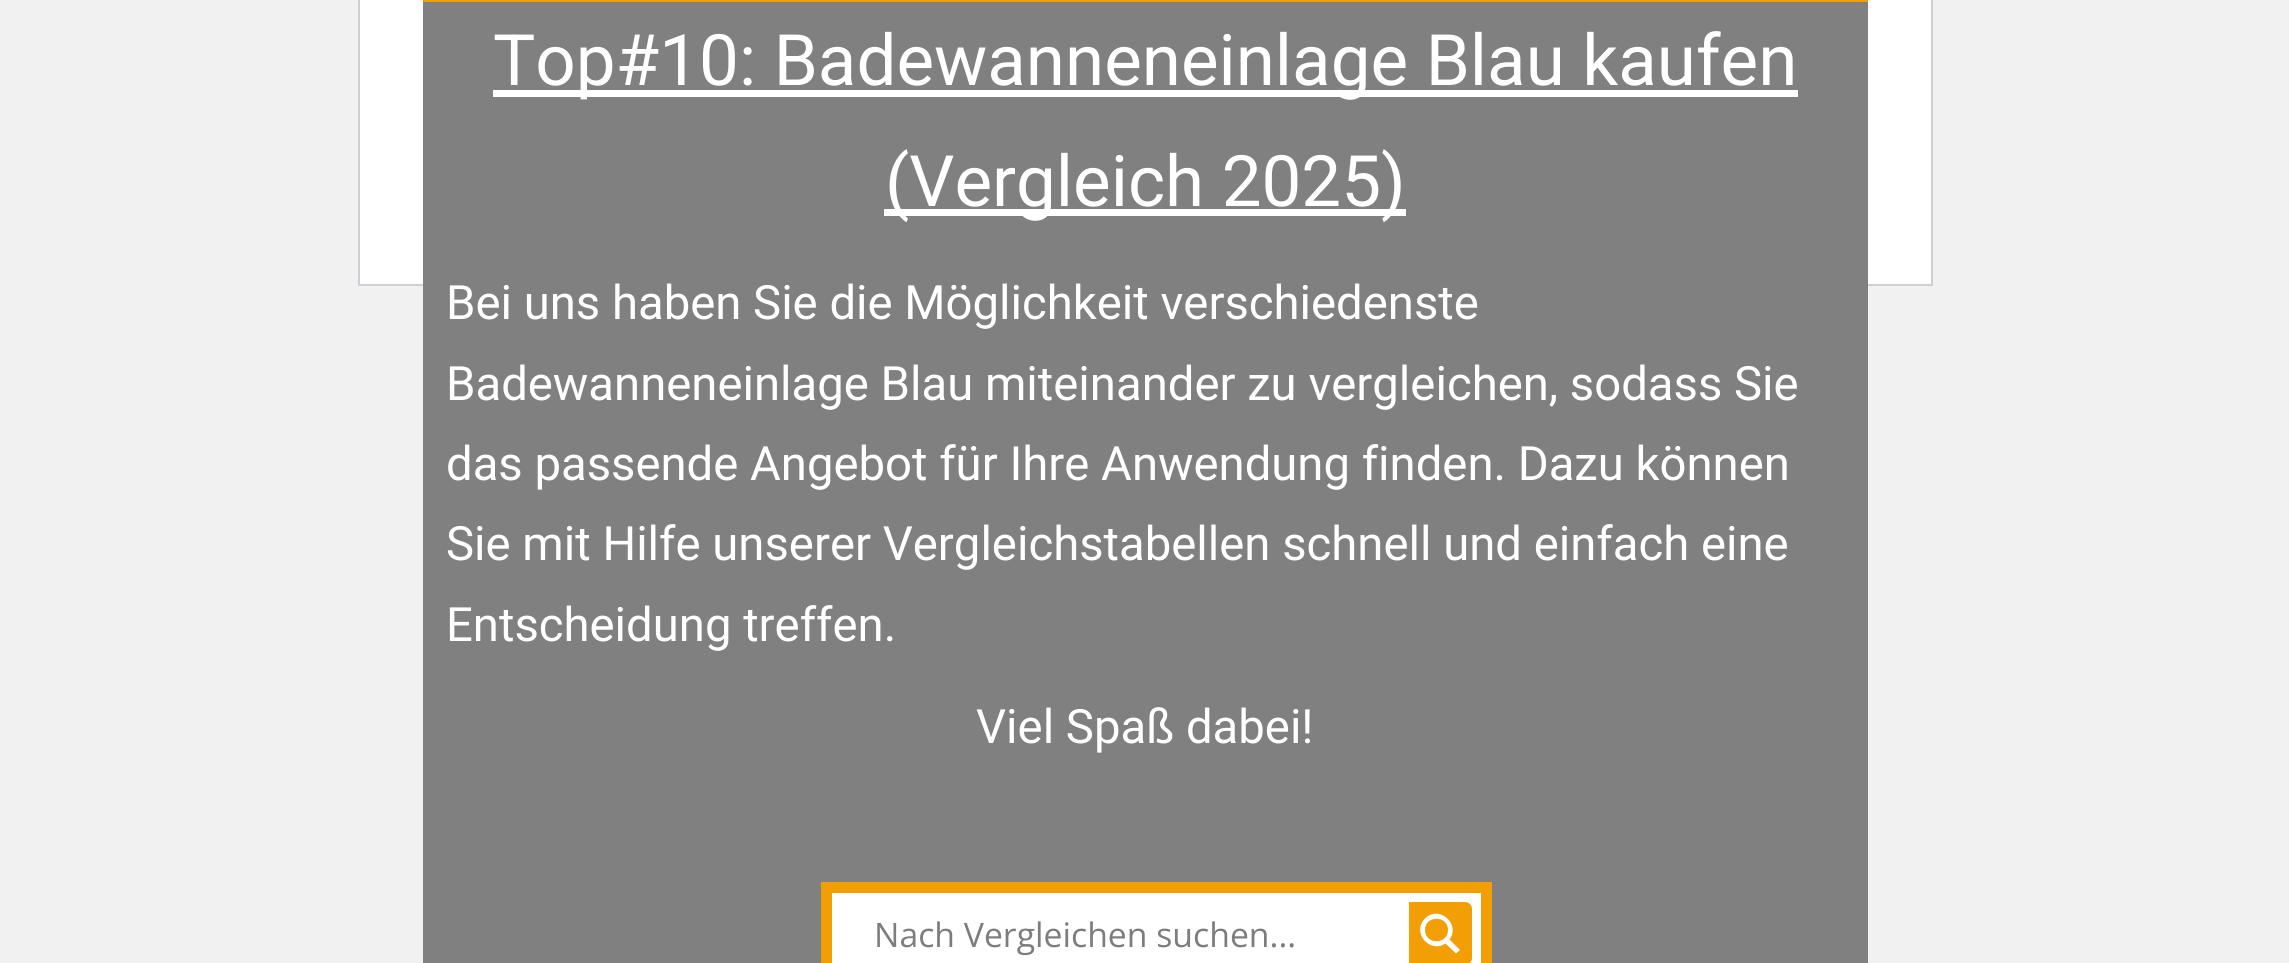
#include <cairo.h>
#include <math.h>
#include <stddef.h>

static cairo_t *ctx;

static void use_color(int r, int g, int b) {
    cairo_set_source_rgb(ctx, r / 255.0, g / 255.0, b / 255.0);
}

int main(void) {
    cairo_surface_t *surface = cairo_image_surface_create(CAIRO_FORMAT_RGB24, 2289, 963);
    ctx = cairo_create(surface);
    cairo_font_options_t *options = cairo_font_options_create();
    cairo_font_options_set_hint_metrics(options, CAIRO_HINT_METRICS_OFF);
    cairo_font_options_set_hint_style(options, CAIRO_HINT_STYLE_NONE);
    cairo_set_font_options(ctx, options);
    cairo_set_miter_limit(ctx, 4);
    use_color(241, 241, 241);
    cairo_paint(ctx);
    use_color(255, 255, 255);
    cairo_rectangle(ctx, 359, -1, 1573, 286);
    cairo_fill_preserve(ctx);
    use_color(204, 208, 212);
    cairo_stroke(ctx);
    use_color(242, 159, 5);
    cairo_rectangle(ctx, 423, 0, 1445, 2);
    cairo_fill(ctx);
    use_color(128, 128, 128);
    cairo_rectangle(ctx, 423, 2, 1445, 961);
    cairo_fill(ctx);
    use_color(255, 255, 255);
    cairo_rectangle(ctx, 493, 90, 1305, 7);
    cairo_fill(ctx);
    cairo_select_font_face(ctx, "Roboto", CAIRO_FONT_SLANT_NORMAL, CAIRO_FONT_WEIGHT_NORMAL);
    cairo_set_font_size(ctx, 70.9);
    cairo_move_to(ctx, 493, 85);
    cairo_show_text(ctx, "Top#10: Badewanneneinlage Blau kaufen");
    cairo_rectangle(ctx, 884, 209, 522, 7);
    cairo_fill(ctx);
    cairo_move_to(ctx, 885, 206);
    cairo_show_text(ctx, "(Vergleich 2025)");
    cairo_set_font_size(ctx, 47.25);
    cairo_move_to(ctx, 446, 319);
    cairo_show_text(ctx, "Bei uns haben Sie die Möglichkeit verschiedenste");
    cairo_move_to(ctx, 446, 400);
    cairo_show_text(ctx, "Badewanneneinlage Blau miteinander zu vergleichen, sodass Sie");
    cairo_move_to(ctx, 446, 480);
    cairo_show_text(ctx, "das passende Angebot für Ihre Anwendung finden. Dazu können");
    cairo_move_to(ctx, 446, 560);
    cairo_show_text(ctx, "Sie mit Hilfe unserer Vergleichstabellen schnell und einfach eine");
    cairo_move_to(ctx, 446, 641);
    cairo_show_text(ctx, "Entscheidung treffen.");
    cairo_move_to(ctx, 976, 743);
    cairo_show_text(ctx, "Viel Spaß dabei!");
    cairo_rectangle(ctx, 826.5, 887.5, 660, 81);
    cairo_fill_preserve(ctx);
    use_color(242, 159, 5);
    cairo_set_line_width(ctx, 11);
    cairo_stroke(ctx);
    cairo_select_font_face(ctx, "Open Sans", CAIRO_FONT_SLANT_NORMAL, CAIRO_FONT_WEIGHT_NORMAL);
    cairo_set_font_size(ctx, 33.75);
    use_color(125, 125, 125);
    cairo_move_to(ctx, 874, 947);
    cairo_show_text(ctx, "Nach Vergleichen suchen...");
    use_color(242, 159, 5);
    cairo_new_path(ctx);
    cairo_move_to(ctx, 1409, 902);
    cairo_line_to(ctx, 1465, 902);
    cairo_curve_to(ctx, 1469, 902, 1472, 905, 1472, 909);
    cairo_line_to(ctx, 1472, 958);
    cairo_curve_to(ctx, 1472, 962, 1469, 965, 1465, 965);
    cairo_line_to(ctx, 1409, 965);
    cairo_close_path(ctx);
    cairo_fill(ctx);
    use_color(255, 255, 255);
    cairo_new_path(ctx);
    cairo_move_to(ctx, 1460, 950);
    cairo_line_to(ctx, 1449.5, 939.5);
    cairo_curve_to(ctx, 1461, 924, 1439, 904.5, 1425, 918.5);
    cairo_curve_to(ctx, 1411, 932.5, 1430, 954, 1445.5, 943.5);
    cairo_line_to(ctx, 1456, 953.5);
    cairo_close_path(ctx);
    cairo_move_to(ctx, 1425, 930);
    cairo_curve_to(ctx, 1425, 915, 1448, 915, 1448, 930);
    cairo_curve_to(ctx, 1448, 945, 1425, 945, 1425, 930);
    cairo_close_path(ctx);
    cairo_fill(ctx);
    cairo_surface_write_to_png(surface, "result.png");
    cairo_font_options_destroy(options);
    cairo_destroy(ctx);
    cairo_surface_destroy(surface);
    return 0;
}
